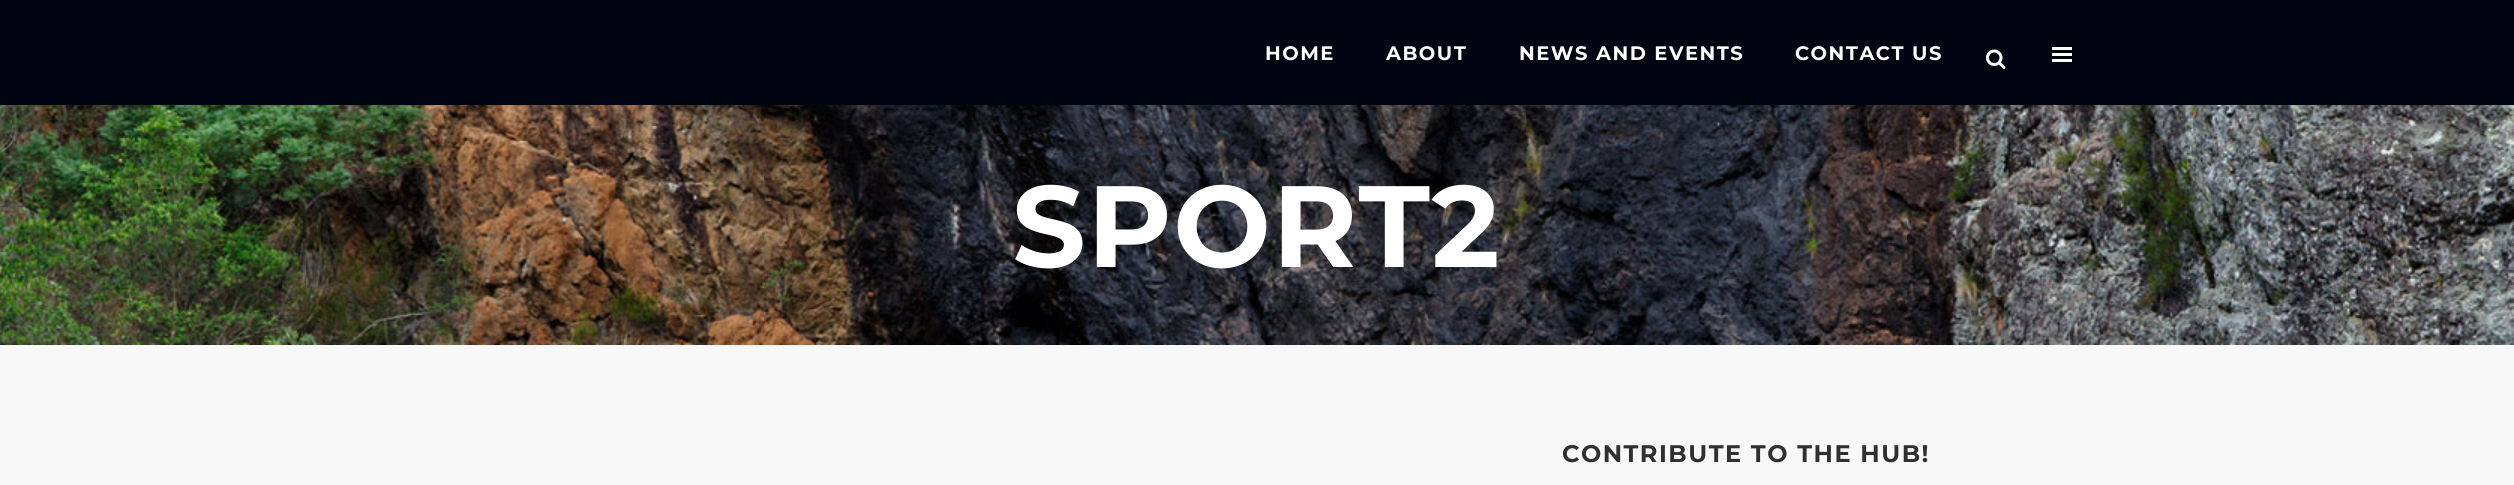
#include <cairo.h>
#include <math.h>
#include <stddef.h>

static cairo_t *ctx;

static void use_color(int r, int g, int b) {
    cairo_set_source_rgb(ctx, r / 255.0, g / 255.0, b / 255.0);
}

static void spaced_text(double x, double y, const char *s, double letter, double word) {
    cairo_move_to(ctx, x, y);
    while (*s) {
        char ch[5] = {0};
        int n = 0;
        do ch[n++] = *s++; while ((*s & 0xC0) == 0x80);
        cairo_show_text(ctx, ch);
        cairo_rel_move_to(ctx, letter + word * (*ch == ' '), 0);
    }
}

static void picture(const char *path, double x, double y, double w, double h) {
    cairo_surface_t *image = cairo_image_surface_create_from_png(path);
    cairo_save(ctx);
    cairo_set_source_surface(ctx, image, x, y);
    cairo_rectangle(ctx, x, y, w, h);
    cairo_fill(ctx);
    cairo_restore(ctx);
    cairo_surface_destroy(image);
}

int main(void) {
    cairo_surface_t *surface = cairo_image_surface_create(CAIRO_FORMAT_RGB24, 2514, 485);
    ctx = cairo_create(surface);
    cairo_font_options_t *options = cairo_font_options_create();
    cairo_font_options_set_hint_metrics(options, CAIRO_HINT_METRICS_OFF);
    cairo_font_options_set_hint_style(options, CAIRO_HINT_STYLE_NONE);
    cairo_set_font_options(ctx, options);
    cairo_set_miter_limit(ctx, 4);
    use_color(248, 248, 248);
    cairo_paint(ctx);
    use_color(0, 6, 17);
    cairo_rectangle(ctx, 0, 0, 2514, 105);
    cairo_fill(ctx);
    cairo_select_font_face(ctx, "Montserrat", CAIRO_FONT_SLANT_NORMAL, CAIRO_FONT_WEIGHT_BOLD);
    cairo_set_font_size(ctx, 19.5);
    use_color(255, 255, 255);
    spaced_text(1265, 60, "HOME", 1.5, 0);
    spaced_text(1386, 60, "ABOUT", 1.5, 0);
    spaced_text(1519, 60, "NEWS AND EVENTS", 1.5, 0);
    spaced_text(1795, 60, "CONTACT US", 1.5, 0);
    picture("img1.png", 1986, 49, 20, 20);
    cairo_rectangle(ctx, 2052, 53, 20, 3);
    cairo_fill(ctx);
    cairo_rectangle(ctx, 2052, 47, 20, 3);
    cairo_fill(ctx);
    cairo_rectangle(ctx, 2052, 59, 20, 3);
    cairo_fill(ctx);
    picture("img2.png", 0, 105, 2514, 240);
    cairo_set_font_size(ctx, 115.5);
    spaced_text(1012, 267, "SPORT2", 1.5, 0);
    cairo_set_font_size(ctx, 24);
    use_color(48, 48, 48);
    spaced_text(1562, 462, "CONTRIBUTE TO THE HUB!", 1.5, 0);
    cairo_surface_write_to_png(surface, "result.png");
    cairo_font_options_destroy(options);
    cairo_destroy(ctx);
    cairo_surface_destroy(surface);
    return 0;
}
